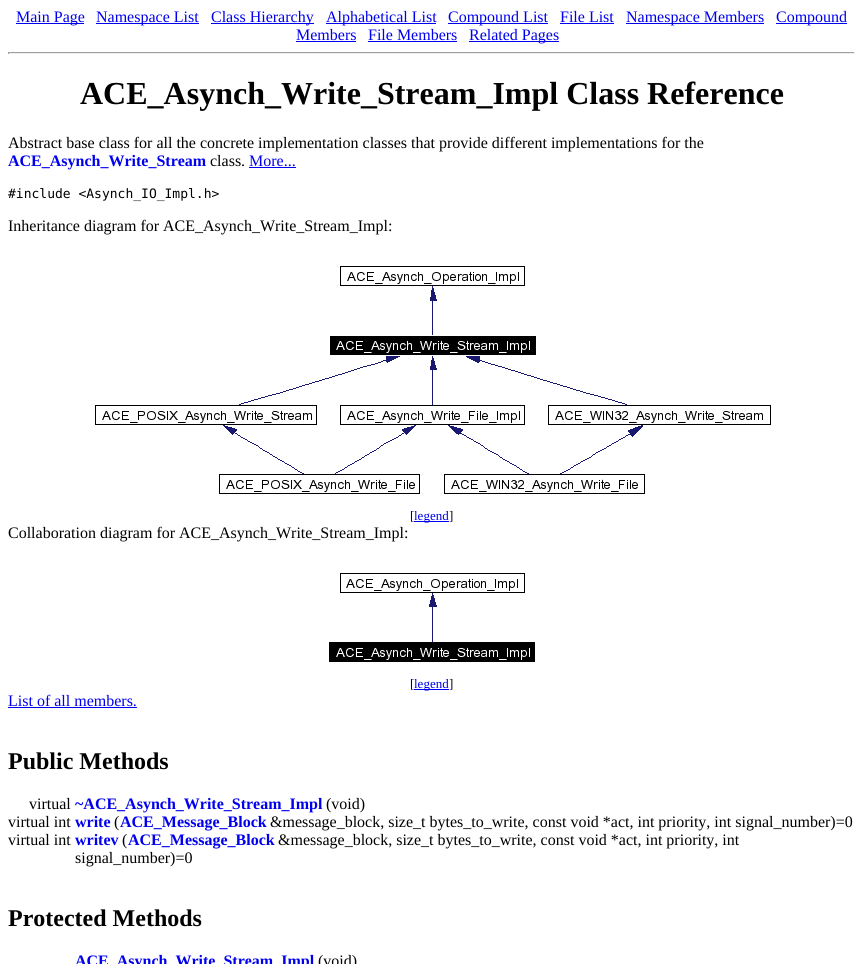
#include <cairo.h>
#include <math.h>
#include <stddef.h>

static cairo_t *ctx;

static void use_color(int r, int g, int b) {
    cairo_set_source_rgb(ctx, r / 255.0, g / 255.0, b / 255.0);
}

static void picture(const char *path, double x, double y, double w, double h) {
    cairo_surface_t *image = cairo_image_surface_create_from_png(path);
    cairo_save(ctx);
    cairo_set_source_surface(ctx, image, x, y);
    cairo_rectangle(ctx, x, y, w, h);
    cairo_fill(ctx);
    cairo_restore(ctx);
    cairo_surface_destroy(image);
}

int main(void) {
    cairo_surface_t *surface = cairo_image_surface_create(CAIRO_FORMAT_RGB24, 863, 964);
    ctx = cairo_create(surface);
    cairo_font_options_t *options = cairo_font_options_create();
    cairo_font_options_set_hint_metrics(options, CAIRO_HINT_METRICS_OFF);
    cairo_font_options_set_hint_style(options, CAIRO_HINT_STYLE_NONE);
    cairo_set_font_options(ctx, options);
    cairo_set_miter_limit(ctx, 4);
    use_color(255, 255, 255);
    cairo_paint(ctx);
    use_color(0, 0, 238);
    cairo_rectangle(ctx, 16, 23, 68, 1);
    cairo_fill(ctx);
    cairo_select_font_face(ctx, "Liberation Serif", CAIRO_FONT_SLANT_NORMAL, CAIRO_FONT_WEIGHT_NORMAL);
    cairo_set_font_size(ctx, 16);
    cairo_move_to(ctx, 16, 22);
    cairo_show_text(ctx, "Main Page");
    cairo_rectangle(ctx, 96, 23, 103, 1);
    cairo_fill(ctx);
    cairo_move_to(ctx, 96, 22);
    cairo_show_text(ctx, "Namespace List");
    cairo_rectangle(ctx, 211, 23, 103, 1);
    cairo_fill(ctx);
    cairo_move_to(ctx, 211, 22);
    cairo_show_text(ctx, "Class Hierarchy");
    cairo_rectangle(ctx, 326, 23, 110, 1);
    cairo_fill(ctx);
    cairo_move_to(ctx, 326, 22);
    cairo_show_text(ctx, "Alphabetical List");
    cairo_rectangle(ctx, 448, 23, 100, 1);
    cairo_fill(ctx);
    cairo_move_to(ctx, 448, 22);
    cairo_show_text(ctx, "Compound List");
    cairo_move_to(ctx, 560, 22);
    cairo_show_text(ctx, "File List");
    cairo_rectangle(ctx, 560, 23, 54, 1);
    cairo_fill(ctx);
    cairo_rectangle(ctx, 626, 23, 138, 1);
    cairo_fill(ctx);
    cairo_move_to(ctx, 626, 22);
    cairo_show_text(ctx, "Namespace Members");
    cairo_rectangle(ctx, 776, 23, 71, 1);
    cairo_fill(ctx);
    cairo_move_to(ctx, 776, 22);
    cairo_show_text(ctx, "Compound");
    cairo_move_to(ctx, 296, 40);
    cairo_show_text(ctx, "Members");
    cairo_rectangle(ctx, 296, 41, 60, 1);
    cairo_fill(ctx);
    cairo_move_to(ctx, 368, 40);
    cairo_show_text(ctx, "File Members");
    cairo_rectangle(ctx, 368, 41, 89, 1);
    cairo_fill(ctx);
    cairo_rectangle(ctx, 469, 41, 90, 1);
    cairo_fill(ctx);
    cairo_move_to(ctx, 469, 40);
    cairo_show_text(ctx, "Related Pages");
    use_color(159, 159, 159);
    cairo_rectangle(ctx, 8, 52, 847, 1);
    cairo_fill(ctx);
    use_color(238, 238, 238);
    cairo_rectangle(ctx, 854, 52, 1, 2);
    cairo_fill(ctx);
    cairo_rectangle(ctx, 8, 53, 847, 1);
    cairo_fill(ctx);
    use_color(159, 159, 159);
    cairo_rectangle(ctx, 8, 52, 1, 2);
    cairo_fill(ctx);
    cairo_select_font_face(ctx, "Liberation Serif", CAIRO_FONT_SLANT_NORMAL, CAIRO_FONT_WEIGHT_BOLD);
    cairo_set_font_size(ctx, 32);
    use_color(0, 0, 0);
    cairo_move_to(ctx, 80, 104);
    cairo_show_text(ctx, "ACE_Asynch_Write_Stream_Impl Class Reference");
    cairo_select_font_face(ctx, "Liberation Serif", CAIRO_FONT_SLANT_NORMAL, CAIRO_FONT_WEIGHT_NORMAL);
    cairo_set_font_size(ctx, 16);
    cairo_move_to(ctx, 8, 148);
    cairo_show_text(ctx, "Abstract base class for all the concrete implementation classes that provide different implementations for the");
    cairo_select_font_face(ctx, "Liberation Serif", CAIRO_FONT_SLANT_NORMAL, CAIRO_FONT_WEIGHT_BOLD);
    use_color(0, 0, 238);
    cairo_move_to(ctx, 8, 166);
    cairo_show_text(ctx, "ACE_Asynch_Write_Stream");
    cairo_select_font_face(ctx, "Liberation Serif", CAIRO_FONT_SLANT_NORMAL, CAIRO_FONT_WEIGHT_NORMAL);
    use_color(0, 0, 0);
    cairo_move_to(ctx, 210, 166);
    cairo_show_text(ctx, "class.");
    use_color(0, 0, 238);
    cairo_move_to(ctx, 249, 166);
    cairo_show_text(ctx, "More...");
    cairo_rectangle(ctx, 249, 167, 47, 1);
    cairo_fill(ctx);
    cairo_select_font_face(ctx, "DejaVu Sans Mono", CAIRO_FONT_SLANT_NORMAL, CAIRO_FONT_WEIGHT_NORMAL);
    cairo_set_font_size(ctx, 13);
    use_color(0, 0, 0);
    cairo_move_to(ctx, 8, 198);
    cairo_show_text(ctx, "#include <Asynch_IO_Impl.h>");
    cairo_select_font_face(ctx, "Liberation Serif", CAIRO_FONT_SLANT_NORMAL, CAIRO_FONT_WEIGHT_NORMAL);
    cairo_set_font_size(ctx, 16);
    cairo_move_to(ctx, 8, 231);
    cairo_show_text(ctx, "Inheritance diagram for ACE_Asynch_Write_Stream_Impl:");
    picture("img1.png", 95, 266, 676, 228);
    cairo_set_font_size(ctx, 13);
    cairo_move_to(ctx, 410, 520);
    cairo_show_text(ctx, "[");
    use_color(0, 0, 238);
    cairo_rectangle(ctx, 414, 521, 35, 1);
    cairo_fill(ctx);
    cairo_move_to(ctx, 414, 520);
    cairo_show_text(ctx, "legend");
    use_color(0, 0, 0);
    cairo_move_to(ctx, 449, 520);
    cairo_show_text(ctx, "]");
    cairo_set_font_size(ctx, 16);
    cairo_move_to(ctx, 8, 538);
    cairo_show_text(ctx, "Collaboration diagram for ACE_Asynch_Write_Stream_Impl:");
    picture("img2.png", 329, 573, 206, 89);
    cairo_set_font_size(ctx, 13);
    cairo_move_to(ctx, 410, 688);
    cairo_show_text(ctx, "[");
    use_color(0, 0, 238);
    cairo_rectangle(ctx, 414, 689, 35, 1);
    cairo_fill(ctx);
    cairo_move_to(ctx, 414, 688);
    cairo_show_text(ctx, "legend");
    use_color(0, 0, 0);
    cairo_move_to(ctx, 449, 688);
    cairo_show_text(ctx, "]");
    cairo_set_font_size(ctx, 16);
    use_color(0, 0, 238);
    cairo_move_to(ctx, 8, 706);
    cairo_show_text(ctx, "List of all members.");
    cairo_rectangle(ctx, 8, 707, 129, 1);
    cairo_fill(ctx);
    cairo_select_font_face(ctx, "Liberation Serif", CAIRO_FONT_SLANT_NORMAL, CAIRO_FONT_WEIGHT_BOLD);
    cairo_set_font_size(ctx, 24);
    use_color(0, 0, 0);
    cairo_move_to(ctx, 8, 769);
    cairo_show_text(ctx, "Public Methods");
    cairo_select_font_face(ctx, "Liberation Serif", CAIRO_FONT_SLANT_NORMAL, CAIRO_FONT_WEIGHT_NORMAL);
    cairo_set_font_size(ctx, 16);
    cairo_move_to(ctx, 29, 809);
    cairo_show_text(ctx, "virtual");
    cairo_select_font_face(ctx, "Liberation Serif", CAIRO_FONT_SLANT_NORMAL, CAIRO_FONT_WEIGHT_BOLD);
    use_color(0, 0, 238);
    cairo_move_to(ctx, 75, 809);
    cairo_show_text(ctx, "~ACE_Asynch_Write_Stream_Impl");
    cairo_select_font_face(ctx, "Liberation Serif", CAIRO_FONT_SLANT_NORMAL, CAIRO_FONT_WEIGHT_NORMAL);
    use_color(0, 0, 0);
    cairo_move_to(ctx, 326, 809);
    cairo_show_text(ctx, "(void)");
    cairo_move_to(ctx, 8, 827);
    cairo_show_text(ctx, "virtual int");
    cairo_select_font_face(ctx, "Liberation Serif", CAIRO_FONT_SLANT_NORMAL, CAIRO_FONT_WEIGHT_BOLD);
    use_color(0, 0, 238);
    cairo_move_to(ctx, 75, 827);
    cairo_show_text(ctx, "write");
    cairo_select_font_face(ctx, "Liberation Serif", CAIRO_FONT_SLANT_NORMAL, CAIRO_FONT_WEIGHT_NORMAL);
    use_color(0, 0, 0);
    cairo_move_to(ctx, 114, 827);
    cairo_show_text(ctx, "(");
    cairo_select_font_face(ctx, "Liberation Serif", CAIRO_FONT_SLANT_NORMAL, CAIRO_FONT_WEIGHT_BOLD);
    use_color(0, 0, 238);
    cairo_move_to(ctx, 120, 827);
    cairo_show_text(ctx, "ACE_Message_Block");
    cairo_select_font_face(ctx, "Liberation Serif", CAIRO_FONT_SLANT_NORMAL, CAIRO_FONT_WEIGHT_NORMAL);
    use_color(0, 0, 0);
    cairo_move_to(ctx, 270, 827);
    cairo_show_text(ctx, "&message_block, size_t bytes_to_write, const void *act, int priority, int signal_number)=0");
    cairo_move_to(ctx, 8, 845);
    cairo_show_text(ctx, "virtual int");
    cairo_select_font_face(ctx, "Liberation Serif", CAIRO_FONT_SLANT_NORMAL, CAIRO_FONT_WEIGHT_BOLD);
    use_color(0, 0, 238);
    cairo_move_to(ctx, 75, 845);
    cairo_show_text(ctx, "writev");
    cairo_select_font_face(ctx, "Liberation Serif", CAIRO_FONT_SLANT_NORMAL, CAIRO_FONT_WEIGHT_NORMAL);
    use_color(0, 0, 0);
    cairo_move_to(ctx, 122, 845);
    cairo_show_text(ctx, "(");
    cairo_select_font_face(ctx, "Liberation Serif", CAIRO_FONT_SLANT_NORMAL, CAIRO_FONT_WEIGHT_BOLD);
    use_color(0, 0, 238);
    cairo_move_to(ctx, 128, 845);
    cairo_show_text(ctx, "ACE_Message_Block");
    cairo_select_font_face(ctx, "Liberation Serif", CAIRO_FONT_SLANT_NORMAL, CAIRO_FONT_WEIGHT_NORMAL);
    use_color(0, 0, 0);
    cairo_move_to(ctx, 278, 845);
    cairo_show_text(ctx, "&message_block, size_t bytes_to_write, const void *act, int priority, int");
    cairo_move_to(ctx, 75, 863);
    cairo_show_text(ctx, "signal_number)=0");
    cairo_select_font_face(ctx, "Liberation Serif", CAIRO_FONT_SLANT_NORMAL, CAIRO_FONT_WEIGHT_BOLD);
    cairo_set_font_size(ctx, 24);
    cairo_move_to(ctx, 8, 926);
    cairo_show_text(ctx, "Protected Methods");
    cairo_set_font_size(ctx, 16);
    use_color(0, 0, 238);
    cairo_move_to(ctx, 75, 966);
    cairo_show_text(ctx, "ACE_Asynch_Write_Stream_Impl");
    cairo_select_font_face(ctx, "Liberation Serif", CAIRO_FONT_SLANT_NORMAL, CAIRO_FONT_WEIGHT_NORMAL);
    use_color(0, 0, 0);
    cairo_move_to(ctx, 318, 966);
    cairo_show_text(ctx, "(void)");
    cairo_surface_write_to_png(surface, "result.png");
    cairo_font_options_destroy(options);
    cairo_destroy(ctx);
    cairo_surface_destroy(surface);
    return 0;
}
